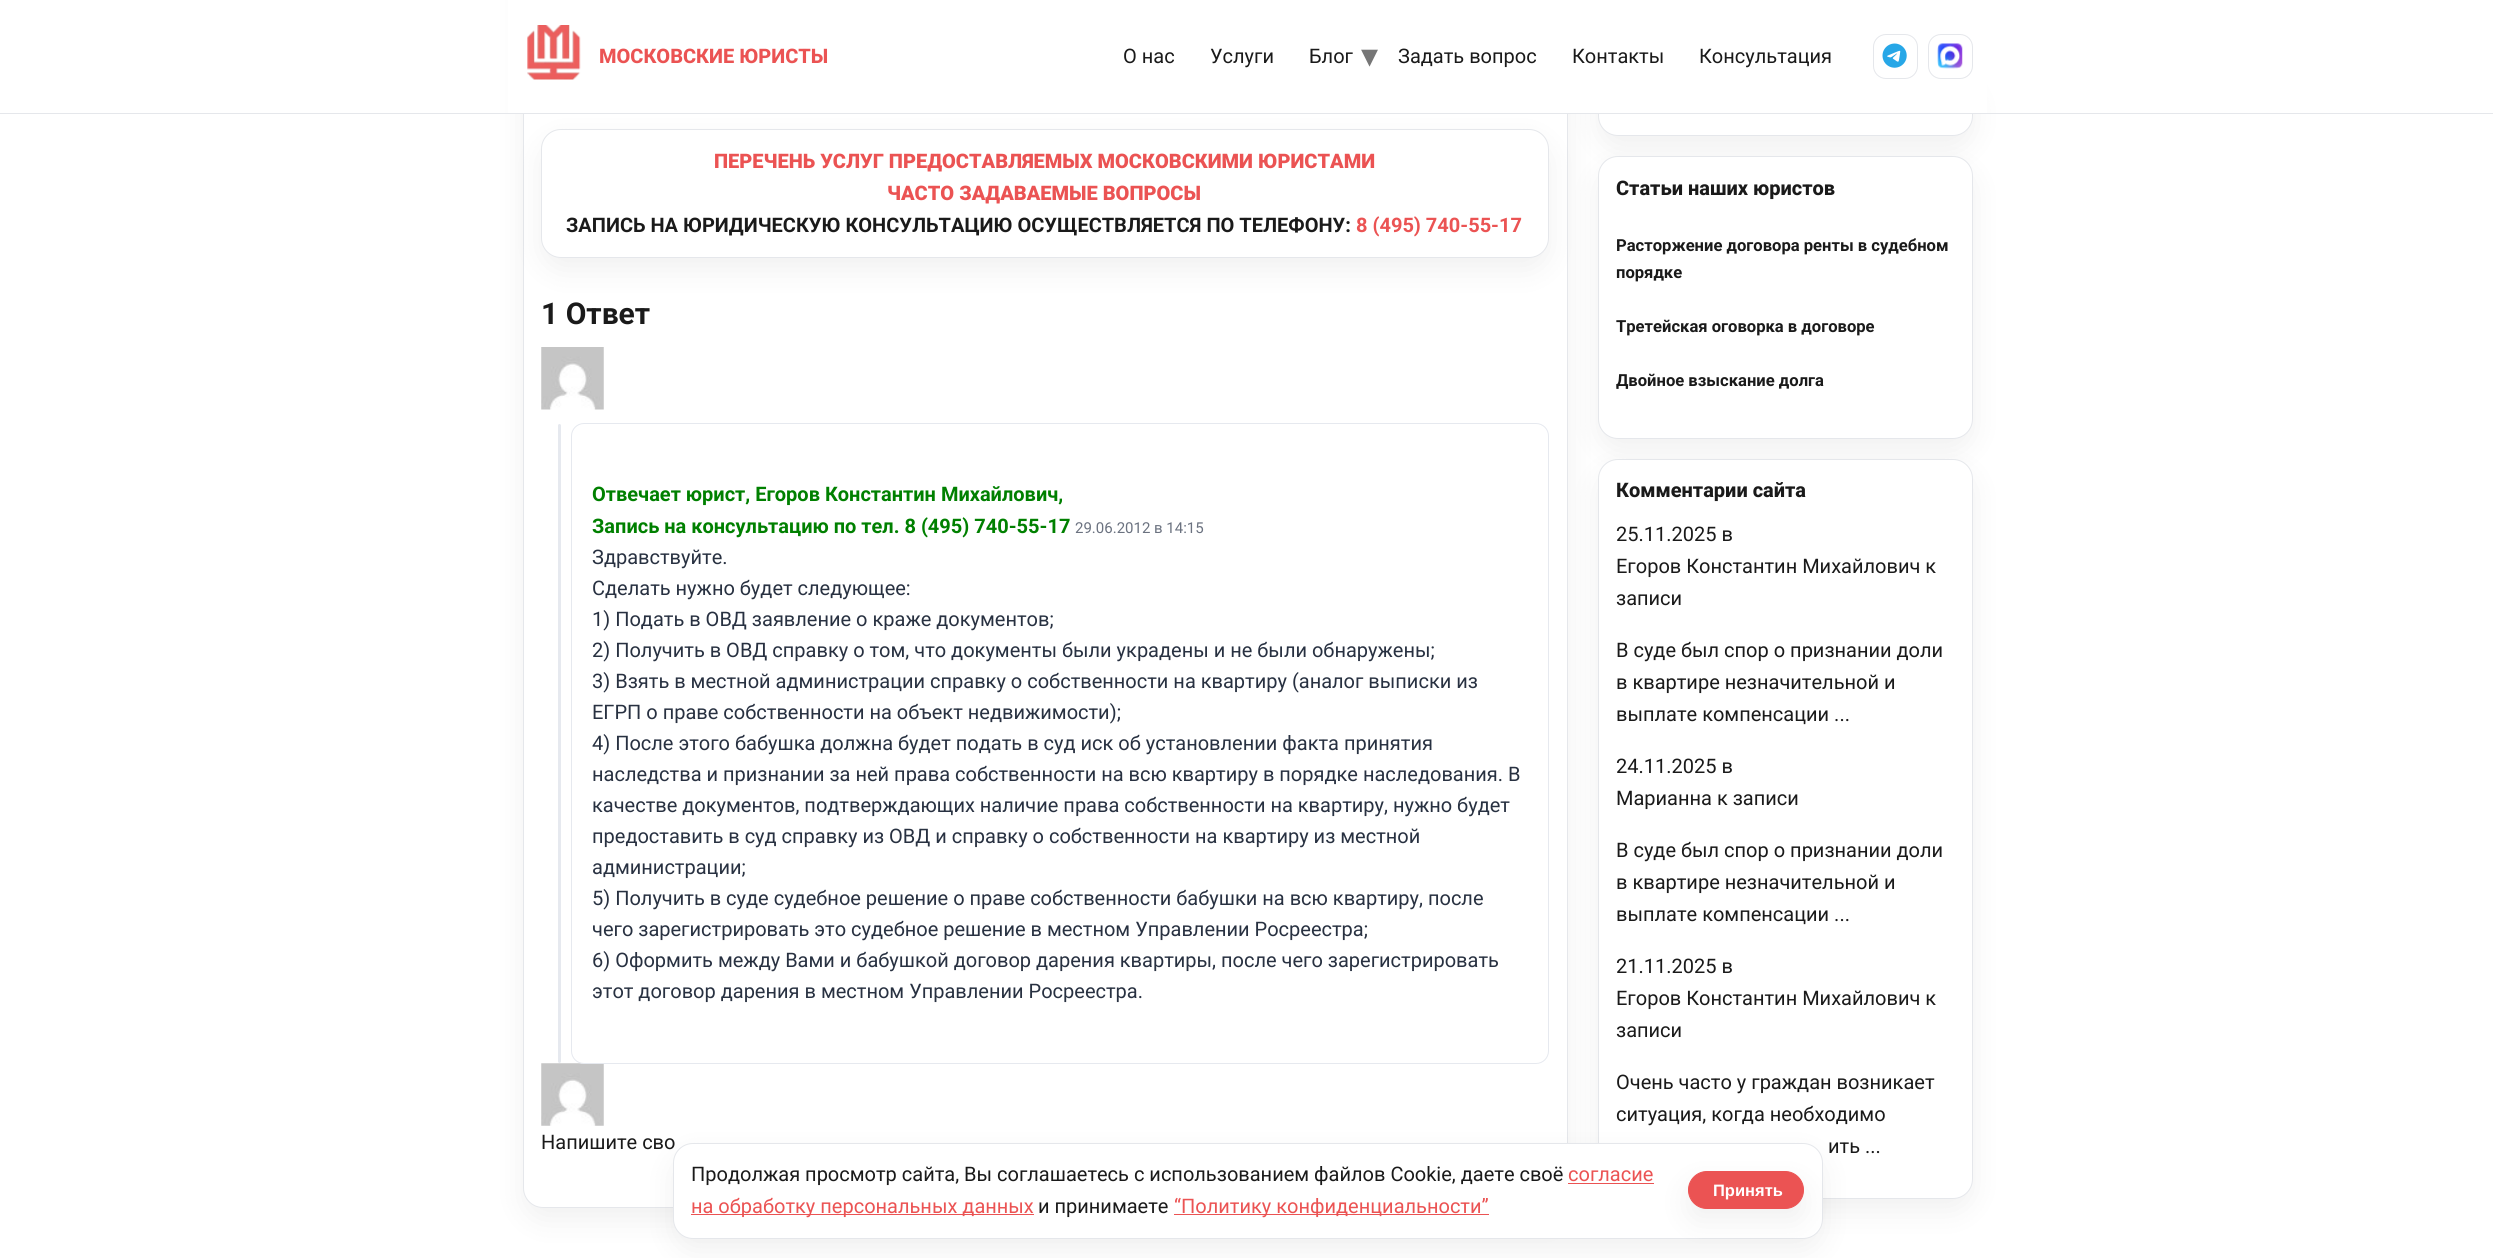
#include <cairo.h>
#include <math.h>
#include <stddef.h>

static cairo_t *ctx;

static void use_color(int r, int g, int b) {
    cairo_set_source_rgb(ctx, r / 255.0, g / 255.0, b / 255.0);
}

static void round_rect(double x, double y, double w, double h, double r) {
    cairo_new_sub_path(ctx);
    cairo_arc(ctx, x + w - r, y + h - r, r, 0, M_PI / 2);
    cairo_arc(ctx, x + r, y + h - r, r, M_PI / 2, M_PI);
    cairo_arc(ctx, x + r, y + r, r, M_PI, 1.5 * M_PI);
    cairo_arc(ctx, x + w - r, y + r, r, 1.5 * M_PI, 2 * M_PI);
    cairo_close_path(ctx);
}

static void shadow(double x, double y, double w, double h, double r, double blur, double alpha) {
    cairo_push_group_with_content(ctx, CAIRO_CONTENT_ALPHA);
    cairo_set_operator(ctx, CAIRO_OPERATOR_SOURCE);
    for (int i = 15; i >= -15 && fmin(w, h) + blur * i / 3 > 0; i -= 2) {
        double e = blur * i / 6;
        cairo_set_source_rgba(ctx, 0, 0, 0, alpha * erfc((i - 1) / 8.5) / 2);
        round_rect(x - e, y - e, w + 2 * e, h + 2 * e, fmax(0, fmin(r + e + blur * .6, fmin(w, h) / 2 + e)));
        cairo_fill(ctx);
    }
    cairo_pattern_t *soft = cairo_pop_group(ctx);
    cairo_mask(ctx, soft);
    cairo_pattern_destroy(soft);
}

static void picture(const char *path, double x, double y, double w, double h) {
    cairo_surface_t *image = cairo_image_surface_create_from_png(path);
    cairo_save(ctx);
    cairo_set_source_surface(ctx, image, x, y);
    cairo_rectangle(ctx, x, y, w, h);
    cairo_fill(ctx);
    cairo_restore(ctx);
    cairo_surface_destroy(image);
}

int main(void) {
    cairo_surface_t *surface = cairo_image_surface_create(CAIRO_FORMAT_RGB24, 2493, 1258);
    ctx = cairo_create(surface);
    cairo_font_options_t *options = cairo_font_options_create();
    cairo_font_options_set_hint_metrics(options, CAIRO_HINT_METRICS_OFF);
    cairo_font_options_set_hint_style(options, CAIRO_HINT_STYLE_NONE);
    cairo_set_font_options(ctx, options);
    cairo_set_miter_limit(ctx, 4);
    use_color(255, 255, 255);
    cairo_paint(ctx);
    use_color(0, 0, 0);
    shadow(523, -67, 1045, 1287, 20, 15.5, 0.06);
    use_color(255, 255, 255);
    round_rect(523.5, -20.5, 1044, 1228, 19.5);
    cairo_fill_preserve(ctx);
    use_color(229, 231, 235);
    cairo_set_line_width(ctx, 1);
    cairo_stroke(ctx);
    use_color(0, 0, 0);
    shadow(541, 141, 1008, 129, 20, 15.5, 0.06);
    shadow(1598, 85, 375, 64, 20, 15.5, 0.06);
    use_color(255, 255, 255);
    round_rect(1598.5, 73.5, 374, 62, 19.5);
    cairo_fill_preserve(ctx);
    use_color(229, 231, 235);
    cairo_stroke(ctx);
    use_color(255, 255, 255);
    cairo_rectangle(ctx, 508, 0, 1479, 113);
    cairo_fill(ctx);
    use_color(229, 231, 235);
    cairo_rectangle(ctx, 0, 113, 2493, 1);
    cairo_fill(ctx);
    picture("img1.png", 527, 25, 54, 55);
    cairo_select_font_face(ctx, "Roboto ExtraBold", CAIRO_FONT_SLANT_NORMAL, CAIRO_FONT_WEIGHT_NORMAL);
    cairo_set_font_size(ctx, 20);
    use_color(235, 83, 83);
    cairo_move_to(ctx, 599, 63);
    cairo_show_text(ctx, "МОСКОВСКИЕ ЮРИСТЫ");
    cairo_select_font_face(ctx, "Roboto", CAIRO_FONT_SLANT_NORMAL, CAIRO_FONT_WEIGHT_NORMAL);
    use_color(26, 26, 26);
    cairo_move_to(ctx, 1123, 63);
    cairo_show_text(ctx, "О нас");
    cairo_move_to(ctx, 1210, 63);
    cairo_show_text(ctx, "Услуги");
    cairo_move_to(ctx, 1309, 63);
    cairo_show_text(ctx, "Блог");
    cairo_select_font_face(ctx, "DejaVu Sans", CAIRO_FONT_SLANT_NORMAL, CAIRO_FONT_WEIGHT_NORMAL);
    cairo_set_font_size(ctx, 34);
    use_color(118, 118, 118);
    cairo_move_to(ctx, 1361, 67);
    cairo_show_text(ctx, "▾");
    cairo_select_font_face(ctx, "Roboto", CAIRO_FONT_SLANT_NORMAL, CAIRO_FONT_WEIGHT_NORMAL);
    cairo_set_font_size(ctx, 20);
    use_color(26, 26, 26);
    cairo_move_to(ctx, 1398, 63);
    cairo_show_text(ctx, "Задать вопрос");
    cairo_move_to(ctx, 1572, 63);
    cairo_show_text(ctx, "Контакты");
    cairo_move_to(ctx, 1699, 63);
    cairo_show_text(ctx, "Консультация");
    round_rect(1873.5, 34.5, 44, 44, 12.5);
    use_color(229, 231, 235);
    cairo_stroke(ctx);
    picture("img2.png", 1882, 43, 25, 25);
    round_rect(1928.5, 34.5, 44, 44, 12.5);
    cairo_stroke(ctx);
    picture("img3.png", 1937, 43, 26, 26);
    use_color(255, 255, 255);
    round_rect(541.5, 129.5, 1007, 128, 19.5);
    cairo_fill_preserve(ctx);
    use_color(229, 231, 235);
    cairo_stroke(ctx);
    cairo_select_font_face(ctx, "Roboto Black", CAIRO_FONT_SLANT_NORMAL, CAIRO_FONT_WEIGHT_NORMAL);
    use_color(235, 83, 83);
    cairo_move_to(ctx, 714, 168);
    cairo_show_text(ctx, "ПЕРЕЧЕНЬ УСЛУГ ПРЕДОСТАВЛЯЕМЫХ МОСКОВСКИМИ ЮРИСТАМИ");
    cairo_move_to(ctx, 887, 200);
    cairo_show_text(ctx, "ЧАСТО ЗАДАВАЕМЫЕ ВОПРОСЫ");
    cairo_select_font_face(ctx, "Roboto", CAIRO_FONT_SLANT_NORMAL, CAIRO_FONT_WEIGHT_BOLD);
    use_color(26, 26, 26);
    cairo_move_to(ctx, 566, 232);
    cairo_show_text(ctx, "ЗАПИСЬ НА ЮРИДИЧЕСКУЮ КОНСУЛЬТАЦИЮ ОСУЩЕСТВЛЯЕТСЯ ПО ТЕЛЕФОНУ:");
    use_color(235, 83, 83);
    cairo_move_to(ctx, 1356, 232);
    cairo_show_text(ctx, "8 (495) 740-55-17");
    cairo_set_font_size(ctx, 30);
    use_color(26, 26, 26);
    cairo_move_to(ctx, 541, 324);
    cairo_show_text(ctx, "1 Ответ");
    picture("img4.png", 541, 347, 63, 63);
    picture("img5.png", 541, 1063, 63, 63);
    use_color(255, 255, 255);
    round_rect(571.5, 423.5, 977, 640, 12.5);
    cairo_fill_preserve(ctx);
    use_color(230, 233, 239);
    cairo_stroke(ctx);
    round_rect(558, 424, 3, 639, 1.5);
    cairo_fill(ctx);
    cairo_set_font_size(ctx, 20);
    use_color(0, 128, 0);
    cairo_move_to(ctx, 592, 501);
    cairo_show_text(ctx, "Отвечает юрист, Егоров Константин Михайлович,");
    cairo_move_to(ctx, 592, 533);
    cairo_show_text(ctx, "Запись на консультацию по тел. 8 (495) 740-55-17");
    cairo_select_font_face(ctx, "Roboto", CAIRO_FONT_SLANT_NORMAL, CAIRO_FONT_WEIGHT_NORMAL);
    cairo_set_font_size(ctx, 15);
    use_color(107, 114, 128);
    cairo_move_to(ctx, 1075, 533);
    cairo_show_text(ctx, "29.06.2012 в 14:15");
    cairo_set_font_size(ctx, 20);
    use_color(40, 49, 65);
    cairo_move_to(ctx, 592, 564);
    cairo_show_text(ctx, "Здравствуйте.");
    cairo_move_to(ctx, 592, 595);
    cairo_show_text(ctx, "Сделать нужно будет следующее:");
    cairo_move_to(ctx, 592, 626);
    cairo_show_text(ctx, "1) Подать в ОВД заявление о краже документов;");
    cairo_move_to(ctx, 592, 657);
    cairo_show_text(ctx, "2) Получить в ОВД справку о том, что документы были украдены и не были обнаружены;");
    cairo_move_to(ctx, 592, 688);
    cairo_show_text(ctx, "3) Взять в местной администрации справку о собственности на квартиру (аналог выписки из");
    cairo_move_to(ctx, 592, 719);
    cairo_show_text(ctx, "ЕГРП о праве собственности на объект недвижимости);");
    cairo_move_to(ctx, 592, 750);
    cairo_show_text(ctx, "4) После этого бабушка должна будет подать в суд иск об установлении факта принятия");
    cairo_move_to(ctx, 592, 781);
    cairo_show_text(ctx, "наследства и признании за ней права собственности на всю квартиру в порядке наследования. В");
    cairo_move_to(ctx, 592, 812);
    cairo_show_text(ctx, "качестве документов, подтверждающих наличие права собственности на квартиру, нужно будет");
    cairo_move_to(ctx, 592, 843);
    cairo_show_text(ctx, "предоставить в суд справку из ОВД и справку о собственности на квартиру из местной");
    cairo_move_to(ctx, 592, 874);
    cairo_show_text(ctx, "администрации;");
    cairo_move_to(ctx, 592, 905);
    cairo_show_text(ctx, "5) Получить в суде судебное решение о праве собственности бабушки на всю квартиру, после");
    cairo_move_to(ctx, 592, 936);
    cairo_show_text(ctx, "чего зарегистрировать это судебное решение в местном Управлении Росреестра;");
    cairo_move_to(ctx, 592, 967);
    cairo_show_text(ctx, "6) Оформить между Вами и бабушкой договор дарения квартиры, после чего зарегистрировать");
    cairo_move_to(ctx, 592, 998);
    cairo_show_text(ctx, "этот договор дарения в местном Управлении Росреестра.");
    use_color(26, 26, 26);
    cairo_move_to(ctx, 541, 1149);
    cairo_show_text(ctx, "Напишите сво");
    use_color(0, 0, 0);
    shadow(1598, 169, 375, 282, 20, 15.5, 0.06);
    use_color(255, 255, 255);
    round_rect(1598.5, 156.5, 374, 282, 19.5);
    cairo_fill_preserve(ctx);
    use_color(229, 231, 235);
    cairo_stroke(ctx);
    cairo_select_font_face(ctx, "Roboto ExtraBold", CAIRO_FONT_SLANT_NORMAL, CAIRO_FONT_WEIGHT_NORMAL);
    use_color(26, 26, 26);
    cairo_move_to(ctx, 1616, 195);
    cairo_show_text(ctx, "Статьи наших юристов");
    cairo_select_font_face(ctx, "Roboto", CAIRO_FONT_SLANT_NORMAL, CAIRO_FONT_WEIGHT_BOLD);
    cairo_set_font_size(ctx, 16.6);
    cairo_move_to(ctx, 1616, 251);
    cairo_show_text(ctx, "Расторжение договора ренты в судебном");
    cairo_move_to(ctx, 1616, 278);
    cairo_show_text(ctx, "порядке");
    cairo_move_to(ctx, 1616, 332);
    cairo_show_text(ctx, "Третейская оговорка в договоре");
    cairo_move_to(ctx, 1616, 386);
    cairo_show_text(ctx, "Двойное взыскание долга");
    use_color(0, 0, 0);
    shadow(1598, 471, 375, 740, 20, 15.5, 0.06);
    use_color(255, 255, 255);
    round_rect(1598.5, 459.5, 374, 739, 19.5);
    cairo_fill_preserve(ctx);
    use_color(229, 231, 235);
    cairo_stroke(ctx);
    cairo_select_font_face(ctx, "Roboto ExtraBold", CAIRO_FONT_SLANT_NORMAL, CAIRO_FONT_WEIGHT_NORMAL);
    cairo_set_font_size(ctx, 20);
    use_color(26, 26, 26);
    cairo_move_to(ctx, 1616, 497);
    cairo_show_text(ctx, "Комментарии сайта");
    cairo_select_font_face(ctx, "Roboto", CAIRO_FONT_SLANT_NORMAL, CAIRO_FONT_WEIGHT_NORMAL);
    cairo_move_to(ctx, 1616, 541);
    cairo_show_text(ctx, "25.11.2025 в");
    cairo_move_to(ctx, 1616, 573);
    cairo_show_text(ctx, "Егоров Константин Михайлович к");
    cairo_move_to(ctx, 1616, 605);
    cairo_show_text(ctx, "записи");
    cairo_move_to(ctx, 1616, 657);
    cairo_show_text(ctx, "В суде был спор о признании доли");
    cairo_move_to(ctx, 1616, 689);
    cairo_show_text(ctx, "в квартире незначительной и");
    cairo_move_to(ctx, 1616, 721);
    cairo_show_text(ctx, "выплате компенсации ...");
    cairo_move_to(ctx, 1616, 773);
    cairo_show_text(ctx, "24.11.2025 в");
    cairo_move_to(ctx, 1616, 805);
    cairo_show_text(ctx, "Марианна к записи");
    cairo_move_to(ctx, 1616, 857);
    cairo_show_text(ctx, "В суде был спор о признании доли");
    cairo_move_to(ctx, 1616, 889);
    cairo_show_text(ctx, "в квартире незначительной и");
    cairo_move_to(ctx, 1616, 921);
    cairo_show_text(ctx, "выплате компенсации ...");
    cairo_move_to(ctx, 1616, 973);
    cairo_show_text(ctx, "21.11.2025 в");
    cairo_move_to(ctx, 1616, 1005);
    cairo_show_text(ctx, "Егоров Константин Михайлович к");
    cairo_move_to(ctx, 1616, 1037);
    cairo_show_text(ctx, "записи");
    cairo_move_to(ctx, 1616, 1089);
    cairo_show_text(ctx, "Очень часто у граждан возникает");
    cairo_move_to(ctx, 1616, 1121);
    cairo_show_text(ctx, "ситуация, когда необходимо");
    cairo_move_to(ctx, 1828, 1153);
    cairo_show_text(ctx, "ить ...");
    use_color(0, 0, 0);
    shadow(673, 1155, 1150, 96, 20, 15.5, 0.06);
    use_color(255, 255, 255);
    round_rect(673.5, 1143.5, 1149, 95, 19.5);
    cairo_fill_preserve(ctx);
    use_color(229, 231, 235);
    cairo_stroke(ctx);
    use_color(26, 26, 26);
    cairo_move_to(ctx, 691, 1181);
    cairo_show_text(ctx, "Продолжая просмотр сайта, Вы соглашаетесь с использованием файлов Cookie, даете своё");
    use_color(235, 83, 83);
    cairo_move_to(ctx, 1568, 1181);
    cairo_show_text(ctx, "согласие");
    cairo_rectangle(ctx, 1568, 1183, 86, 1);
    cairo_fill(ctx);
    cairo_rectangle(ctx, 691, 1214, 343, 1);
    cairo_fill(ctx);
    cairo_move_to(ctx, 691, 1213);
    cairo_show_text(ctx, "на обработку персональных данных");
    use_color(26, 26, 26);
    cairo_move_to(ctx, 1038, 1213);
    cairo_show_text(ctx, "и принимаете");
    use_color(235, 83, 83);
    cairo_rectangle(ctx, 1174, 1214, 315, 1);
    cairo_fill(ctx);
    cairo_move_to(ctx, 1174, 1213);
    cairo_show_text(ctx, "“Политику конфиденциальности”");
    use_color(0, 0, 0);
    shadow(1688, 1184, 116, 37, 18.5, 15.5, 0.06);
    use_color(235, 83, 83);
    round_rect(1688.5, 1171.5, 115, 37, 18.5);
    cairo_fill_preserve(ctx);
    cairo_stroke(ctx);
    cairo_select_font_face(ctx, "Liberation Sans", CAIRO_FONT_SLANT_NORMAL, CAIRO_FONT_WEIGHT_BOLD);
    cairo_set_font_size(ctx, 16.5);
    use_color(255, 255, 255);
    cairo_move_to(ctx, 1713, 1196);
    cairo_show_text(ctx, "Принять");
    cairo_surface_write_to_png(surface, "result.png");
    cairo_font_options_destroy(options);
    cairo_destroy(ctx);
    cairo_surface_destroy(surface);
    return 0;
}
